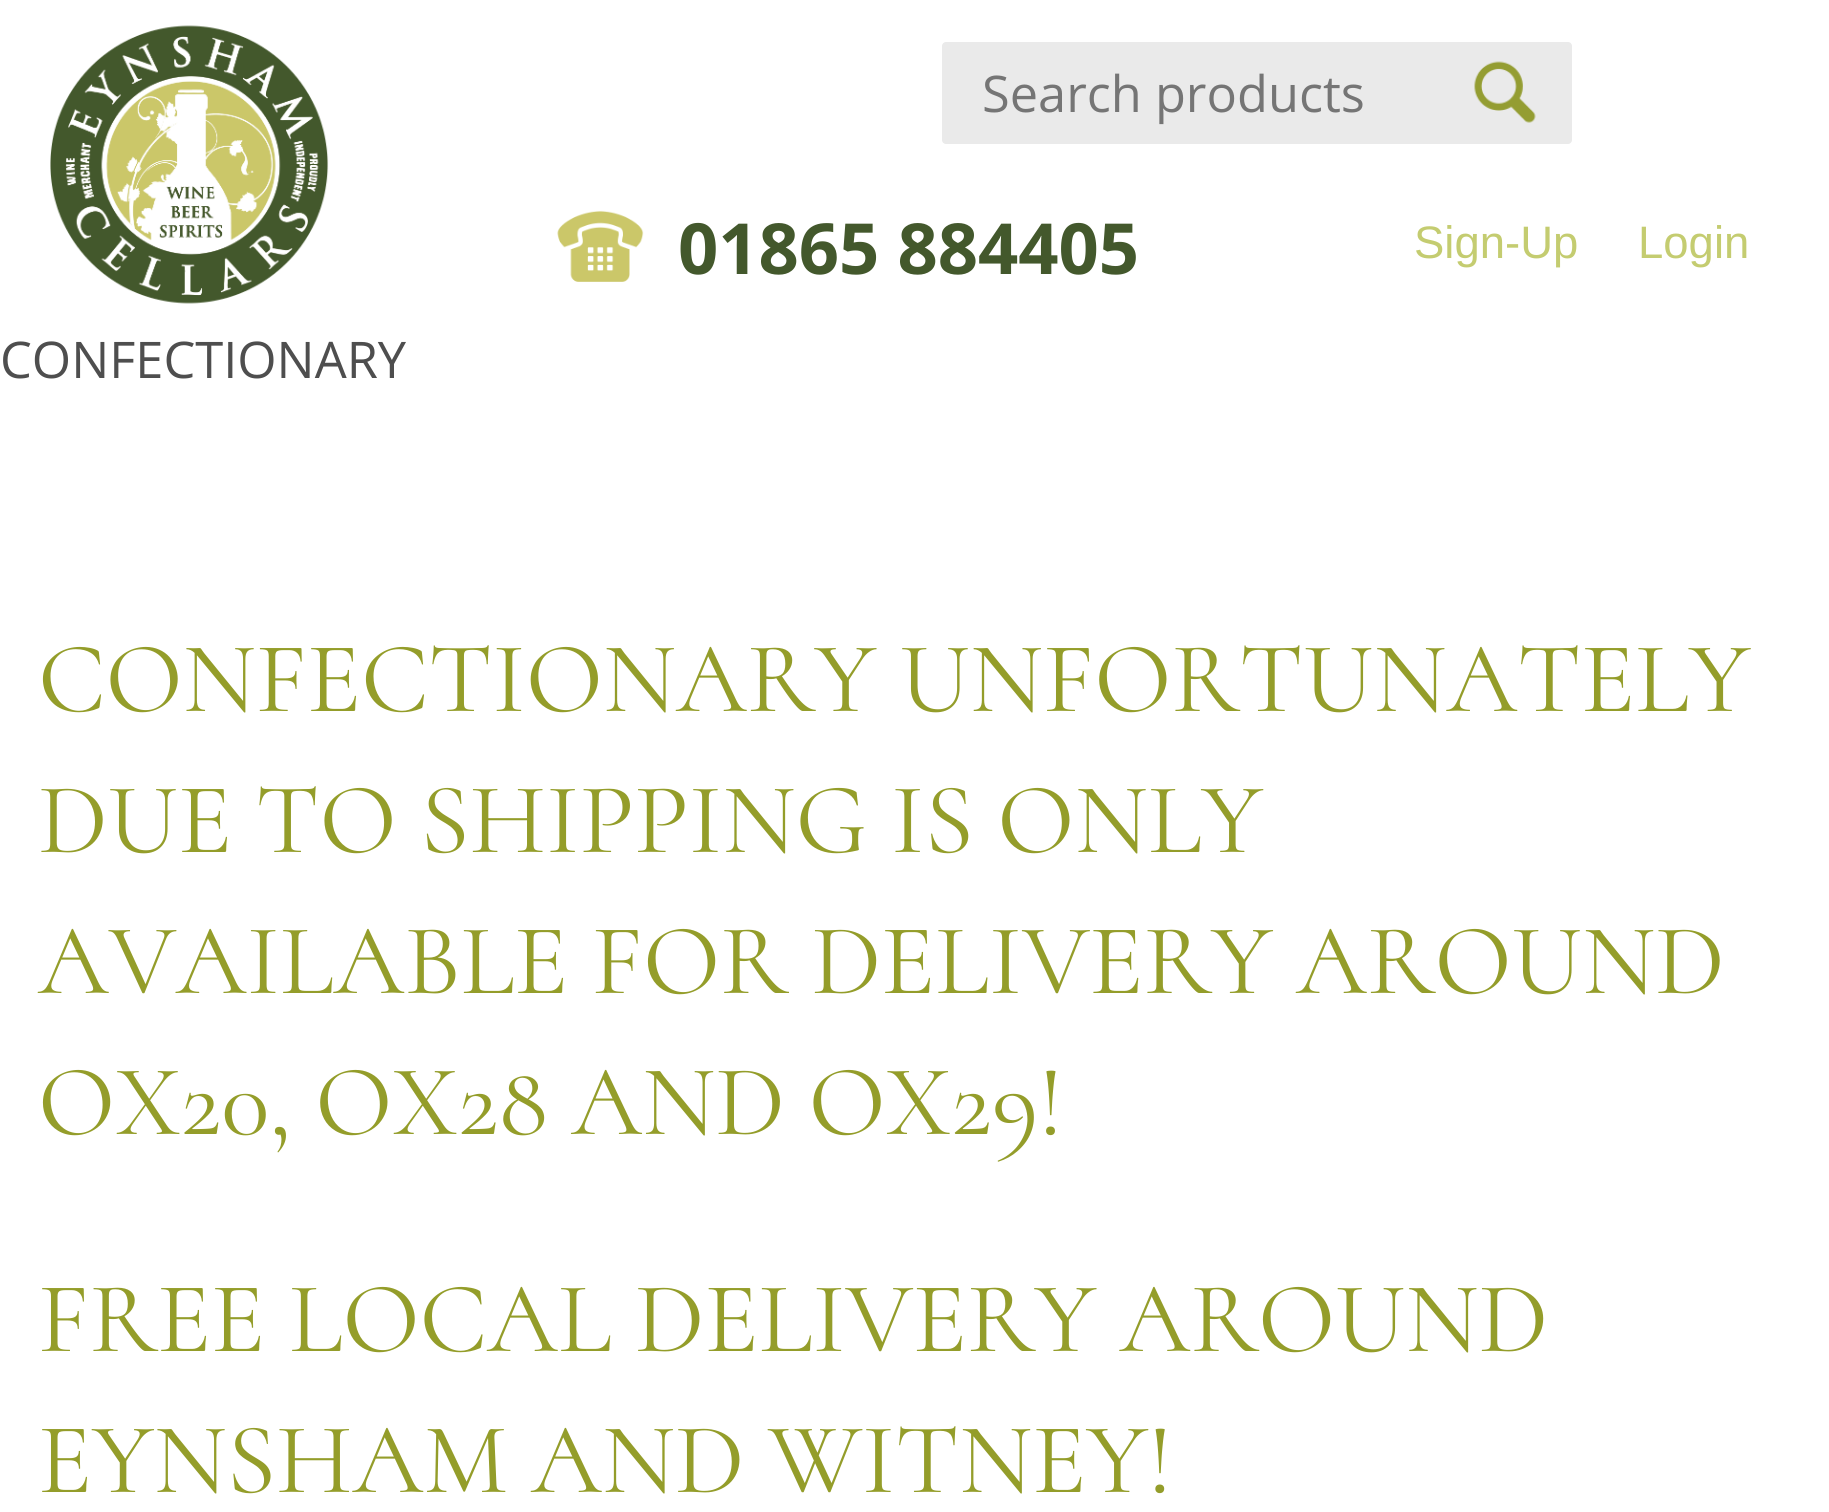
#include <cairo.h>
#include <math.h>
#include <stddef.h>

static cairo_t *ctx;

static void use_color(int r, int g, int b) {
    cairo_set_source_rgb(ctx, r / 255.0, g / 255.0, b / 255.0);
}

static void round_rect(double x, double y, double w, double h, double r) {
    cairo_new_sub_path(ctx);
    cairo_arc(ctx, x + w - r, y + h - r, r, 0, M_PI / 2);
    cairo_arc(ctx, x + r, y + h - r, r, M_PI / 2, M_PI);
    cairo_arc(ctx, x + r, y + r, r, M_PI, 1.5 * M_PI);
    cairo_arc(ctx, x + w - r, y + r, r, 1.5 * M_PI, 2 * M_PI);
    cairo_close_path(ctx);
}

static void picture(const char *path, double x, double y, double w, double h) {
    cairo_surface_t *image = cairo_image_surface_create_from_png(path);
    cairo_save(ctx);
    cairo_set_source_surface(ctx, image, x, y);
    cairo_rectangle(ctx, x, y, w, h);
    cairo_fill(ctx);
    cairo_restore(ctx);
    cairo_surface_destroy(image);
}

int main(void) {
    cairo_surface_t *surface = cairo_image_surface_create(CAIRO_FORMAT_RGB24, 1829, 1512);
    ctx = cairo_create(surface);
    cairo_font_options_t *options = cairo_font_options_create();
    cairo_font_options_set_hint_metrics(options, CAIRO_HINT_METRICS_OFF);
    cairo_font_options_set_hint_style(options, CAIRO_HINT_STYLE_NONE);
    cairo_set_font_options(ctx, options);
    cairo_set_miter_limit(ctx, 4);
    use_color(255, 255, 255);
    cairo_paint(ctx);
    picture("img1.png", 50, 25, 279, 279);
    use_color(234, 234, 234);
    round_rect(942, 42, 630, 102, 4);
    cairo_fill(ctx);
    cairo_select_font_face(ctx, "Open Sans", CAIRO_FONT_SLANT_NORMAL, CAIRO_FONT_WEIGHT_NORMAL);
    cairo_set_font_size(ctx, 50.5);
    use_color(117, 117, 117);
    cairo_move_to(ctx, 982, 112);
    cairo_show_text(ctx, "Search products");
    picture("img2.png", 1474, 61, 62, 62);
    picture("img3.png", 557, 210, 87, 72);
    cairo_select_font_face(ctx, "Open Sans", CAIRO_FONT_SLANT_NORMAL, CAIRO_FONT_WEIGHT_BOLD);
    cairo_set_font_size(ctx, 70.5);
    use_color(67, 88, 44);
    cairo_move_to(ctx, 678, 274);
    cairo_show_text(ctx, "01865 884405");
    cairo_select_font_face(ctx, "Liberation Sans", CAIRO_FONT_SLANT_NORMAL, CAIRO_FONT_WEIGHT_NORMAL);
    cairo_set_font_size(ctx, 45.5);
    use_color(196, 204, 112);
    cairo_move_to(ctx, 1414, 258);
    cairo_show_text(ctx, "Sign-Up");
    cairo_move_to(ctx, 1638, 258);
    cairo_show_text(ctx, "Login");
    cairo_select_font_face(ctx, "Open Sans", CAIRO_FONT_SLANT_NORMAL, CAIRO_FONT_WEIGHT_NORMAL);
    cairo_set_font_size(ctx, 50.5);
    use_color(78, 78, 78);
    cairo_move_to(ctx, 0, 378);
    cairo_show_text(ctx, "CONFECTIONARY");
    cairo_select_font_face(ctx, "Cormorant", CAIRO_FONT_SLANT_NORMAL, CAIRO_FONT_WEIGHT_NORMAL);
    cairo_set_font_size(ctx, 100.75);
    use_color(148, 157, 42);
    cairo_move_to(ctx, 38, 711);
    cairo_show_text(ctx, "CONFECTIONARY UNFORTUNATELY");
    cairo_move_to(ctx, 38, 852);
    cairo_show_text(ctx, "DUE TO SHIPPING IS ONLY");
    cairo_move_to(ctx, 38, 993);
    cairo_show_text(ctx, "AVAILABLE FOR DELIVERY AROUND");
    cairo_move_to(ctx, 38, 1134);
    cairo_show_text(ctx, "OX20, OX28 AND OX29!");
    cairo_move_to(ctx, 38, 1351);
    cairo_show_text(ctx, "FREE LOCAL DELIVERY AROUND");
    cairo_move_to(ctx, 38, 1492);
    cairo_show_text(ctx, "EYNSHAM AND WITNEY!");
    cairo_surface_write_to_png(surface, "result.png");
    cairo_font_options_destroy(options);
    cairo_destroy(ctx);
    cairo_surface_destroy(surface);
    return 0;
}
